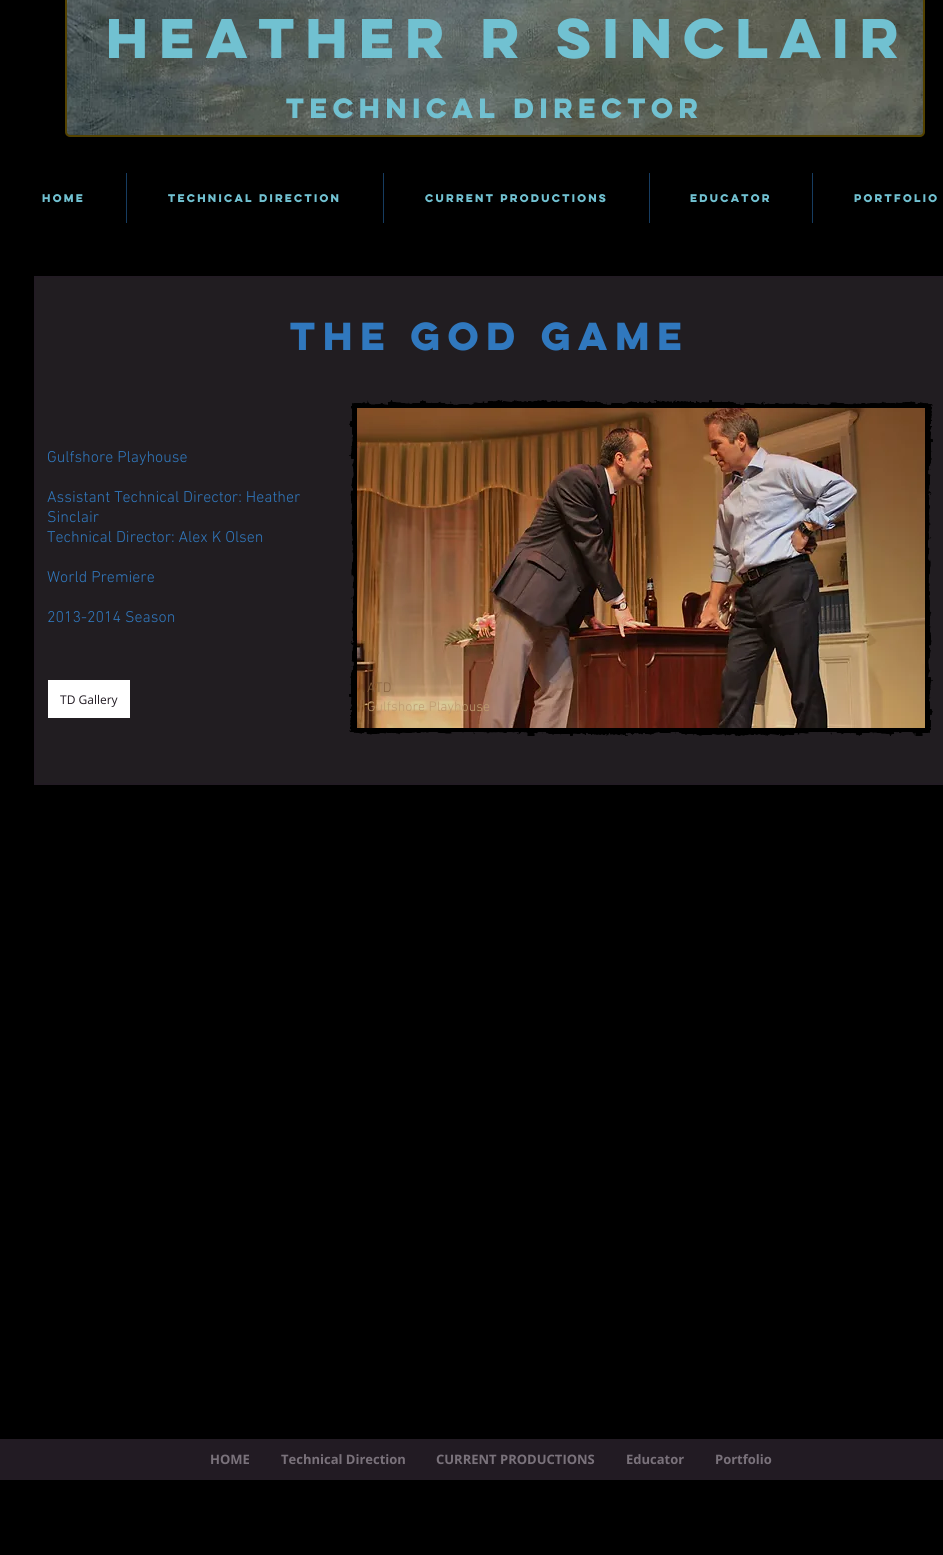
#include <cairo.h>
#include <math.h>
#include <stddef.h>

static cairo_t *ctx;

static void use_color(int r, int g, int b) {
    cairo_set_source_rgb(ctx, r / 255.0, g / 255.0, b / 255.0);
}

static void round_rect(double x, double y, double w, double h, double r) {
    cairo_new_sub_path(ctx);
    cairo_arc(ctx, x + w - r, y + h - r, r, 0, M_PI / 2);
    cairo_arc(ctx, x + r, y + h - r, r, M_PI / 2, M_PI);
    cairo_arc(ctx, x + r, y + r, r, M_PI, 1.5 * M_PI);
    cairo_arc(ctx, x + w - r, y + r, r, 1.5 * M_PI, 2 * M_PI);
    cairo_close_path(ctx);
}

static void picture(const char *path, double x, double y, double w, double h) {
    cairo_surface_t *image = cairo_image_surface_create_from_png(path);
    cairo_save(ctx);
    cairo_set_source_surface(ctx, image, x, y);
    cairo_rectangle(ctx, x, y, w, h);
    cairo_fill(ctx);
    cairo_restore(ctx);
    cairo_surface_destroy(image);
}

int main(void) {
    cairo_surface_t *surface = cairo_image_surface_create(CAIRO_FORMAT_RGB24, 943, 1555);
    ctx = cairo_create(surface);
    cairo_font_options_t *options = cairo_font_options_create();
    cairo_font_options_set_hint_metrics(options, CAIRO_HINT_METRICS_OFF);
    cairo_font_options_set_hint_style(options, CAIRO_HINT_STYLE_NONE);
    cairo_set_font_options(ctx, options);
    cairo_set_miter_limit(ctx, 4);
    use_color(0, 0, 0);
    cairo_paint(ctx);
    use_color(84, 66, 0);
    round_rect(66, -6, 858, 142, 4);
    cairo_fill_preserve(ctx);
    cairo_stroke(ctx);
    picture("img1.png", 67, 0, 856, 135);
    cairo_select_font_face(ctx, "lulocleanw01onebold", CAIRO_FONT_SLANT_NORMAL, CAIRO_FONT_WEIGHT_BOLD);
    cairo_set_font_size(ctx, 50);
    use_color(113, 193, 209);
    cairo_move_to(ctx, 106, 58);
    cairo_show_text(ctx, "heather r sinclair");
    cairo_set_font_size(ctx, 25);
    cairo_move_to(ctx, 286, 118);
    cairo_show_text(ctx, "TECHNICAL DIRECTOR");
    cairo_set_font_size(ctx, 10);
    cairo_move_to(ctx, 42, 202);
    cairo_show_text(ctx, "HOME");
    use_color(22, 60, 97);
    cairo_rectangle(ctx, 126, 173, 1, 50);
    cairo_fill(ctx);
    use_color(113, 193, 209);
    cairo_move_to(ctx, 168, 202);
    cairo_show_text(ctx, "Technical Direction");
    use_color(22, 60, 97);
    cairo_rectangle(ctx, 383, 173, 1, 50);
    cairo_fill(ctx);
    use_color(113, 193, 209);
    cairo_move_to(ctx, 425, 202);
    cairo_show_text(ctx, "CURRENT PRODUCTIONS");
    use_color(22, 60, 97);
    cairo_rectangle(ctx, 649, 173, 1, 50);
    cairo_fill(ctx);
    use_color(113, 193, 209);
    cairo_move_to(ctx, 690, 202);
    cairo_show_text(ctx, "Educator");
    use_color(22, 60, 97);
    cairo_rectangle(ctx, 812, 173, 1, 50);
    cairo_fill(ctx);
    use_color(113, 193, 209);
    cairo_move_to(ctx, 854, 202);
    cairo_show_text(ctx, "Portfolio");
    use_color(33, 29, 33);
    cairo_rectangle(ctx, 35, 277, 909, 507);
    cairo_fill_preserve(ctx);
    use_color(34, 27, 35);
    cairo_stroke(ctx);
    cairo_set_font_size(ctx, 35);
    use_color(48, 120, 190);
    cairo_move_to(ctx, 290, 350);
    cairo_show_text(ctx, "the god game");
    cairo_select_font_face(ctx, "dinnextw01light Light", CAIRO_FONT_SLANT_NORMAL, CAIRO_FONT_WEIGHT_NORMAL);
    cairo_set_font_size(ctx, 16);
    cairo_move_to(ctx, 47, 462);
    cairo_show_text(ctx, "Gulfshore Playhouse");
    cairo_move_to(ctx, 47, 502);
    cairo_show_text(ctx, "Assistant Technical Director: Heather");
    cairo_move_to(ctx, 47, 522);
    cairo_show_text(ctx, "Sinclair");
    cairo_move_to(ctx, 47, 542);
    cairo_show_text(ctx, "Technical Director: Alex K Olsen");
    cairo_move_to(ctx, 47, 582);
    cairo_show_text(ctx, "World Premiere");
    cairo_move_to(ctx, 47, 622);
    cairo_show_text(ctx, "2013-2014 Season");
    use_color(255, 255, 255);
    cairo_rectangle(ctx, 48, 680, 82, 38);
    cairo_fill(ctx);
    cairo_select_font_face(ctx, "Open Sans", CAIRO_FONT_SLANT_NORMAL, CAIRO_FONT_WEIGHT_NORMAL);
    cairo_set_font_size(ctx, 12);
    use_color(34, 27, 35);
    cairo_move_to(ctx, 60, 704);
    cairo_show_text(ctx, "TD Gallery");
    picture("img2.png", 349, 400, 580, 332);
    picture("img3.png", 353, 404, 580, 332);
    picture("img4.png", 357, 408, 568, 320);
    cairo_select_font_face(ctx, "dinnextw01light Light", CAIRO_FONT_SLANT_NORMAL, CAIRO_FONT_WEIGHT_NORMAL);
    cairo_set_font_size(ctx, 14);
    use_color(137, 99, 64);
    cairo_move_to(ctx, 367, 692);
    cairo_show_text(ctx, "ATD");
    use_color(190, 155, 111);
    cairo_move_to(ctx, 367, 711);
    cairo_show_text(ctx, "Gulfshore Playhouse");
    use_color(34, 27, 35);
    cairo_rectangle(ctx, 0, 1439, 943, 41);
    cairo_fill(ctx);
    cairo_select_font_face(ctx, "Open Sans", CAIRO_FONT_SLANT_NORMAL, CAIRO_FONT_WEIGHT_BOLD);
    cairo_set_font_size(ctx, 13);
    use_color(122, 114, 123);
    cairo_move_to(ctx, 210, 1464);
    cairo_show_text(ctx, "HOME");
    cairo_move_to(ctx, 281, 1464);
    cairo_show_text(ctx, "Technical Direction");
    cairo_move_to(ctx, 436, 1464);
    cairo_show_text(ctx, "CURRENT PRODUCTIONS");
    cairo_move_to(ctx, 626, 1464);
    cairo_show_text(ctx, "Educator");
    cairo_move_to(ctx, 715, 1464);
    cairo_show_text(ctx, "Portfolio");
    cairo_surface_write_to_png(surface, "result.png");
    cairo_font_options_destroy(options);
    cairo_destroy(ctx);
    cairo_surface_destroy(surface);
    return 0;
}
